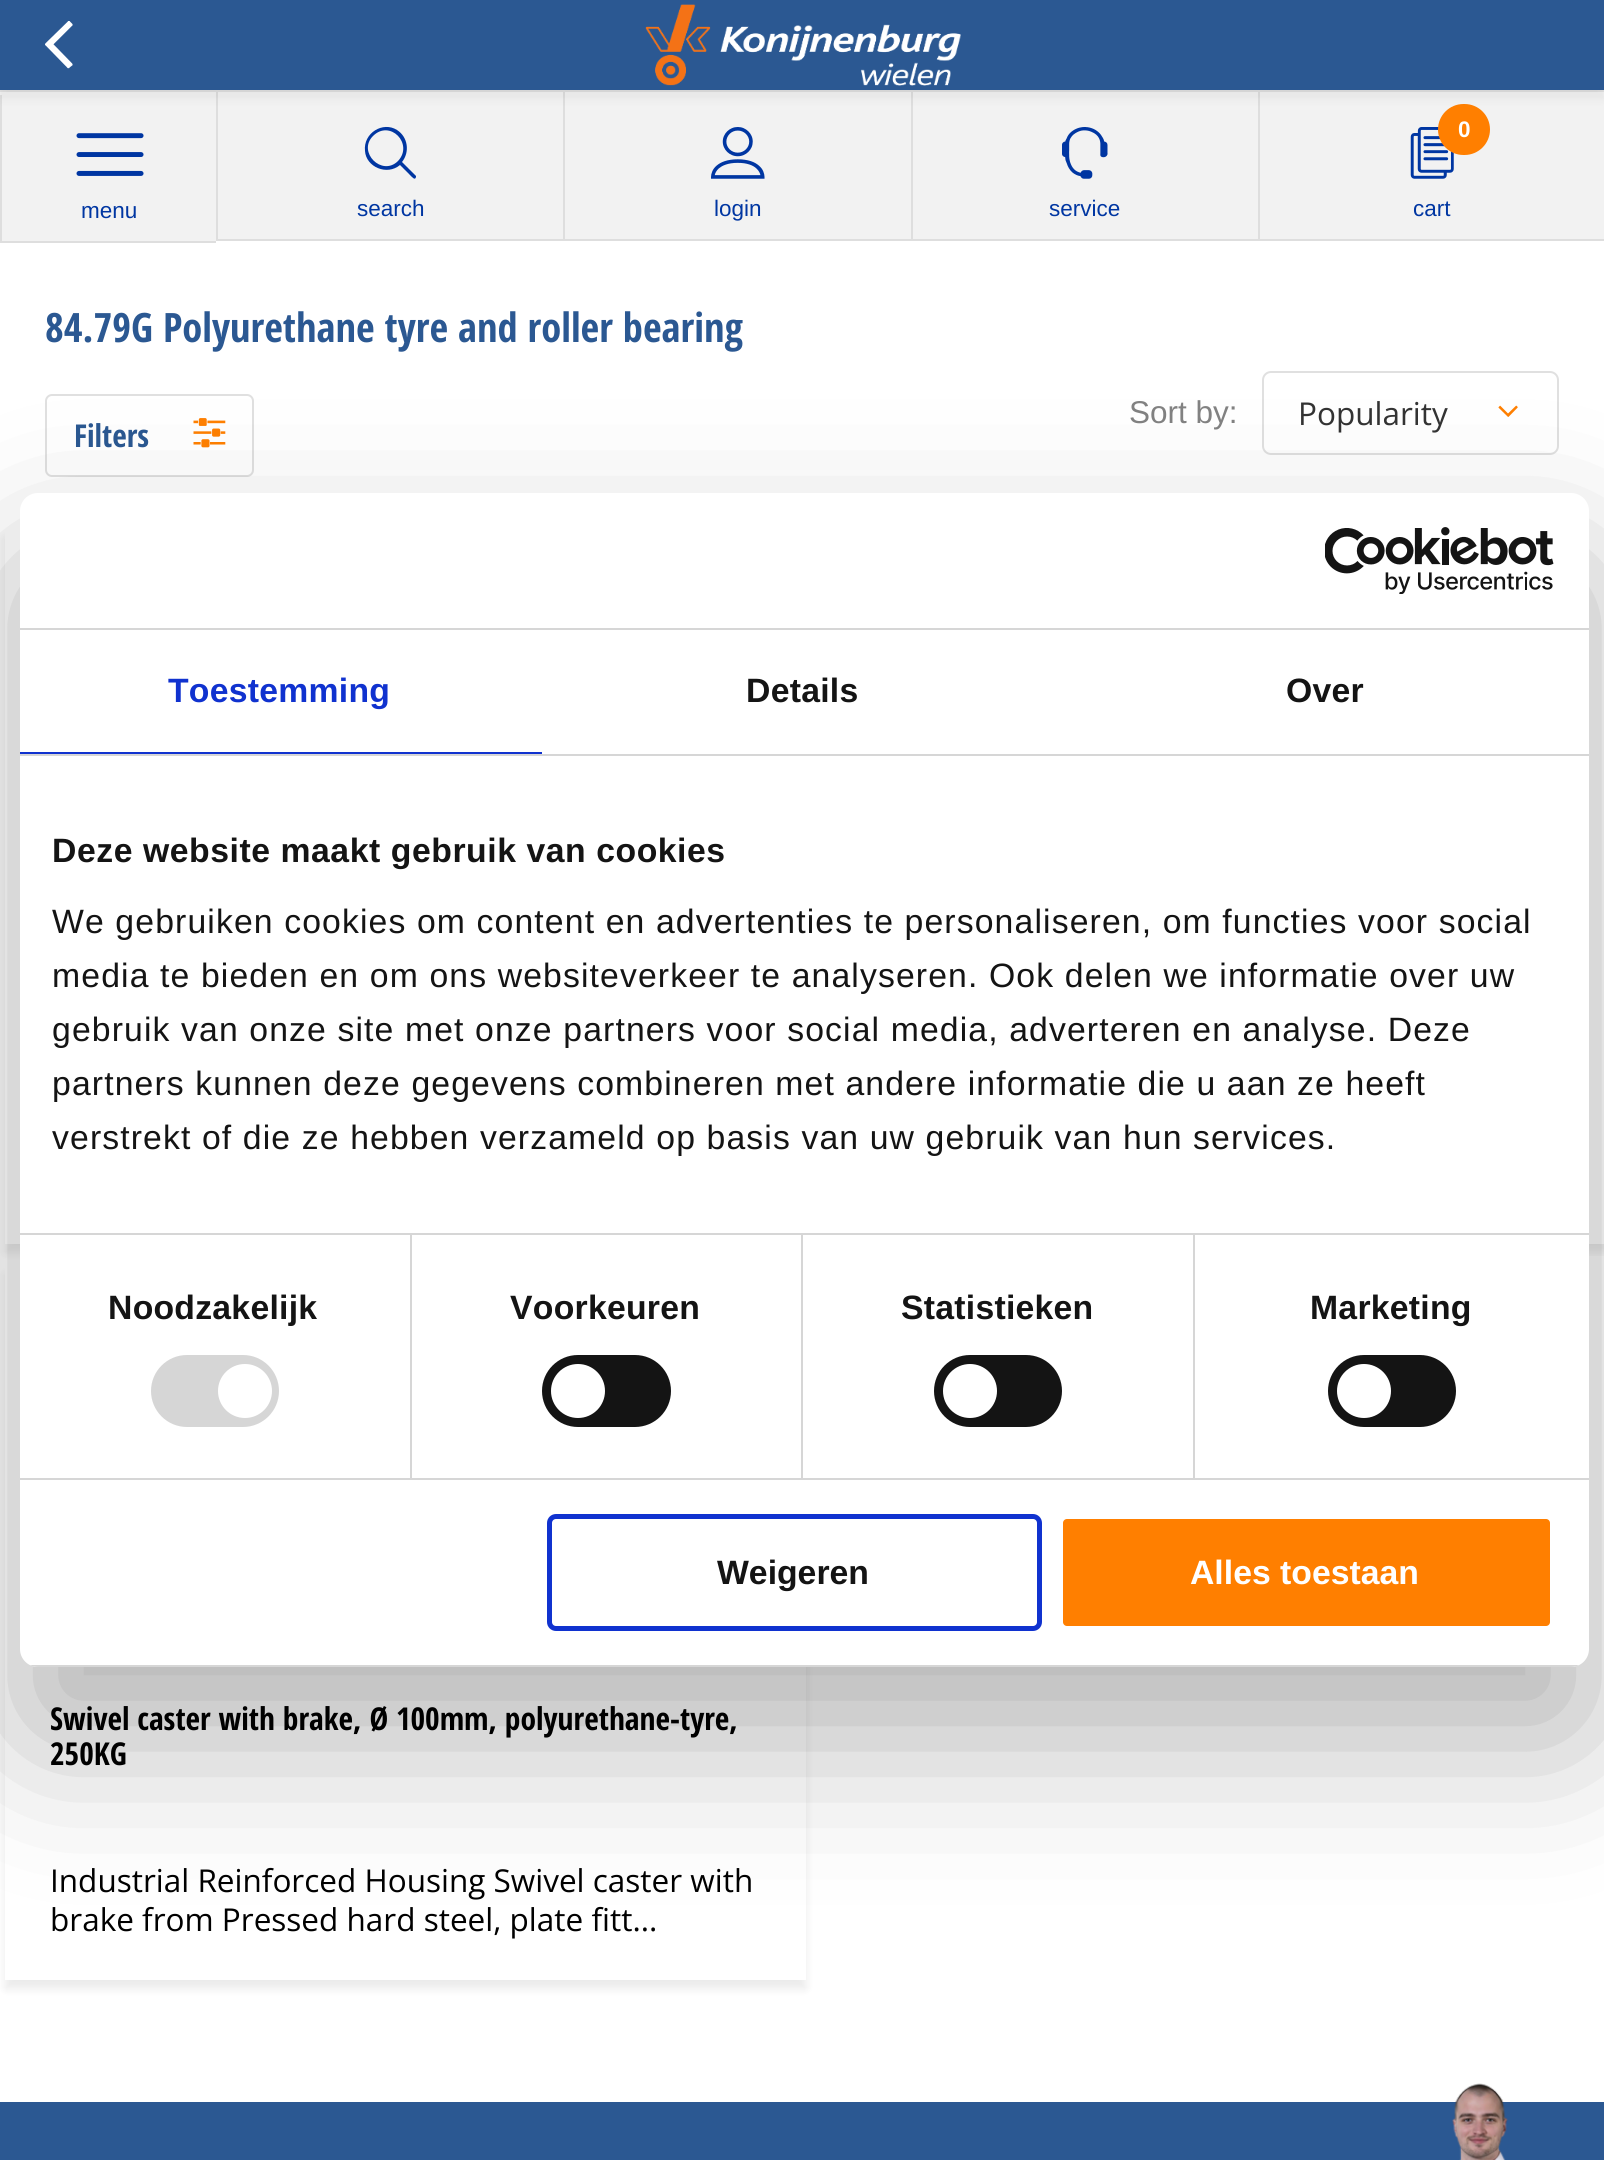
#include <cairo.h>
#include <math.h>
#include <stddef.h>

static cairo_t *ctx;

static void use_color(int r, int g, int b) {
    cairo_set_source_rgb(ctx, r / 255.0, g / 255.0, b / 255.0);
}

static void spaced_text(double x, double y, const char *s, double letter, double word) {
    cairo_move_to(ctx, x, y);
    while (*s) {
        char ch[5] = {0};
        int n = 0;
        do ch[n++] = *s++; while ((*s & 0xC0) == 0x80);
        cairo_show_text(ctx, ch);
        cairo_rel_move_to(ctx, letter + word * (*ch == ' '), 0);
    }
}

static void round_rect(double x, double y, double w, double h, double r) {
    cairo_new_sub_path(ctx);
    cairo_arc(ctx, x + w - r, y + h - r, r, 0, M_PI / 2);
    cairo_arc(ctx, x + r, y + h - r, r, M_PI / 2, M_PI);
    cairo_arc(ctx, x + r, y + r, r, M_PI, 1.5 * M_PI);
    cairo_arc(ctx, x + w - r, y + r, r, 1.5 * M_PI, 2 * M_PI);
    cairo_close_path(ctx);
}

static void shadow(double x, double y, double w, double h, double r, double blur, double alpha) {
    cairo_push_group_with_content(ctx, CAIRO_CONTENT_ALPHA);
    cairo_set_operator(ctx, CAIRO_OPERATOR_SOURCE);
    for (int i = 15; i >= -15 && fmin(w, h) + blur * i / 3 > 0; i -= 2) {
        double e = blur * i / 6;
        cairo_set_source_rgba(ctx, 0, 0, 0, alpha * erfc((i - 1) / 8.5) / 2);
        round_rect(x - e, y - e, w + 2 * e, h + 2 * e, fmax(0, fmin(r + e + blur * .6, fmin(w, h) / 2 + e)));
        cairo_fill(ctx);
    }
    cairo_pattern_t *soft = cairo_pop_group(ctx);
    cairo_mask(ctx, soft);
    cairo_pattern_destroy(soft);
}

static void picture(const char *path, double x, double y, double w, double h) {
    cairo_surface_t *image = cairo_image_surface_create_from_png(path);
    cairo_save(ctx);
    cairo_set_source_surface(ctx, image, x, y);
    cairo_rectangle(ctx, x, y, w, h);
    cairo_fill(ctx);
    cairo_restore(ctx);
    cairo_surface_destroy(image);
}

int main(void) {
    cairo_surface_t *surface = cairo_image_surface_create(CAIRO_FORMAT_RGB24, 1604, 2160);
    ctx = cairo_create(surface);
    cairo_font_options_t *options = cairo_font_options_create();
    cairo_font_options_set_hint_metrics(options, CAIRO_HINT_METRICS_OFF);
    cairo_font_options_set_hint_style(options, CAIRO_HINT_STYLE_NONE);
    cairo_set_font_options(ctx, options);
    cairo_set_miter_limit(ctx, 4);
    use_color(255, 255, 255);
    cairo_paint(ctx);
    use_color(242, 242, 242);
    cairo_rectangle(ctx, 0, 92, 1604, 147);
    cairo_fill(ctx);
    use_color(224, 224, 224);
    cairo_rectangle(ctx, 0, 90, 1604, 2);
    cairo_fill(ctx);
    use_color(222, 222, 222);
    cairo_rectangle(ctx, 0, 241, 216, 2);
    cairo_fill(ctx);
    cairo_rectangle(ctx, 0, 95, 2, 148);
    cairo_fill(ctx);
    cairo_rectangle(ctx, 216, 239, 1388, 2);
    cairo_fill(ctx);
    cairo_rectangle(ctx, 216, 92, 2, 149);
    cairo_fill(ctx);
    cairo_rectangle(ctx, 563, 92, 2, 149);
    cairo_fill(ctx);
    cairo_rectangle(ctx, 911, 92, 2, 149);
    cairo_fill(ctx);
    cairo_rectangle(ctx, 1258, 92, 2, 149);
    cairo_fill(ctx);
    picture("img6.png", 1410, 127, 44, 52);
    use_color(255, 127, 0);
    round_rect(1438, 104, 52, 51, 25.5);
    cairo_fill(ctx);
    use_color(0, 0, 0);
    shadow(0, 9, 1604, 90, 0, 4.5, 0.05);
    use_color(43, 88, 146);
    cairo_rectangle(ctx, 0, 0, 1604, 90);
    cairo_fill(ctx);
    picture("img1.png", 45, 21, 28, 48);
    picture("img2.png", 645, 4, 316, 82);
    use_color(242, 242, 242);
    cairo_rectangle(ctx, 2, 239, 214, 2);
    cairo_fill(ctx);
    picture("img3.png", 76, 133, 68, 43);
    cairo_select_font_face(ctx, "Liberation Sans", CAIRO_FONT_SLANT_NORMAL, CAIRO_FONT_WEIGHT_NORMAL);
    cairo_set_font_size(ctx, 22.5);
    use_color(0, 54, 162);
    cairo_move_to(ctx, 81, 218);
    cairo_show_text(ctx, "menu");
    cairo_new_path(ctx);
    cairo_move_to(ctx, 416, 176);
    cairo_line_to(ctx, 402, 162);
    cairo_curve_to(ctx, 410, 152, 408, 137, 397, 130);
    cairo_curve_to(ctx, 383, 121, 363, 133, 365, 151);
    cairo_curve_to(ctx, 366, 167, 387, 176, 400, 165);
    cairo_line_to(ctx, 409, 174);
    cairo_curve_to(ctx, 412, 177, 415, 181, 416, 177);
    cairo_close_path(ctx);
    cairo_move_to(ctx, 398, 161);
    cairo_curve_to(ctx, 382, 177, 357, 152, 373, 136);
    cairo_curve_to(ctx, 390, 119, 414, 144, 398, 161);
    cairo_close_path(ctx);
    cairo_fill(ctx);
    cairo_move_to(ctx, 357, 216);
    cairo_show_text(ctx, "search");
    picture("img4.png", 711, 127, 54, 52);
    cairo_move_to(ctx, 714, 216);
    cairo_show_text(ctx, "login");
    picture("img5.png", 1062, 127, 46, 52);
    cairo_move_to(ctx, 1049, 216);
    cairo_show_text(ctx, "service");
    cairo_select_font_face(ctx, "Liberation Sans", CAIRO_FONT_SLANT_NORMAL, CAIRO_FONT_WEIGHT_BOLD);
    use_color(255, 255, 255);
    cairo_move_to(ctx, 1458, 137);
    cairo_show_text(ctx, "0");
    cairo_select_font_face(ctx, "Liberation Sans", CAIRO_FONT_SLANT_NORMAL, CAIRO_FONT_WEIGHT_NORMAL);
    use_color(0, 54, 162);
    cairo_move_to(ctx, 1413, 216);
    cairo_show_text(ctx, "cart");
    cairo_select_font_face(ctx, "Open Sans Condensed", CAIRO_FONT_SLANT_NORMAL, CAIRO_FONT_WEIGHT_BOLD);
    cairo_set_font_size(ctx, 40.5);
    use_color(43, 88, 146);
    cairo_move_to(ctx, 45, 342);
    cairo_show_text(ctx, "84.79G Polyurethane tyre and roller bearing");
    cairo_select_font_face(ctx, "Liberation Sans", CAIRO_FONT_SLANT_NORMAL, CAIRO_FONT_WEIGHT_NORMAL);
    cairo_set_font_size(ctx, 31.5);
    use_color(130, 130, 130);
    cairo_move_to(ctx, 1129, 423);
    cairo_show_text(ctx, "Sort by:");
    picture("img7.png", 1498, 405, 20, 12);
    round_rect(1263, 372, 295, 82, 8);
    use_color(224, 224, 224);
    cairo_stroke(ctx);
    cairo_select_font_face(ctx, "Open Sans", CAIRO_FONT_SLANT_NORMAL, CAIRO_FONT_WEIGHT_NORMAL);
    use_color(51, 51, 51);
    cairo_move_to(ctx, 1298, 425);
    cairo_show_text(ctx, "Popularity");
    round_rect(46, 395, 207, 81, 6);
    use_color(224, 224, 224);
    cairo_stroke(ctx);
    cairo_select_font_face(ctx, "Open Sans Condensed", CAIRO_FONT_SLANT_NORMAL, CAIRO_FONT_WEIGHT_BOLD);
    use_color(43, 88, 146);
    cairo_move_to(ctx, 74, 447);
    cairo_show_text(ctx, "Filters");
    picture("img8.png", 193, 418, 33, 30);
    cairo_save(ctx);
    cairo_set_fill_rule(ctx, CAIRO_FILL_RULE_EVEN_ODD);
    cairo_new_path(ctx);
    cairo_move_to(ctx, 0, 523);
    cairo_line_to(ctx, 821, 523);
    cairo_line_to(ctx, 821, 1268);
    cairo_line_to(ctx, 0, 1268);
    cairo_close_path(ctx);
    cairo_move_to(ctx, 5, 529);
    cairo_line_to(ctx, 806, 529);
    cairo_line_to(ctx, 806, 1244);
    cairo_line_to(ctx, 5, 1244);
    cairo_close_path(ctx);
    cairo_clip(ctx);
    use_color(0, 0, 0);
    shadow(5, 538, 801, 715, 0, 4.5, 0.08);
    cairo_restore(ctx);
    cairo_save(ctx);
    cairo_rectangle(ctx, 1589, 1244, 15, 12);
    cairo_clip(ctx);
    use_color(0, 0, 0);
    shadow(810, 538, 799, 715, 0, 4.5, 0.08);
    cairo_restore(ctx);
    cairo_save(ctx);
    cairo_set_fill_rule(ctx, CAIRO_FILL_RULE_EVEN_ODD);
    cairo_new_path(ctx);
    cairo_move_to(ctx, 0, 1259);
    cairo_line_to(ctx, 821, 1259);
    cairo_line_to(ctx, 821, 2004);
    cairo_line_to(ctx, 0, 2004);
    cairo_close_path(ctx);
    cairo_move_to(ctx, 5, 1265);
    cairo_line_to(ctx, 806, 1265);
    cairo_line_to(ctx, 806, 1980);
    cairo_line_to(ctx, 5, 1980);
    cairo_close_path(ctx);
    cairo_clip(ctx);
    use_color(0, 0, 0);
    shadow(5, 1274, 801, 715, 0, 4.5, 0.08);
    cairo_restore(ctx);
    use_color(0, 0, 0);
    cairo_move_to(ctx, 50, 1730);
    cairo_show_text(ctx, "Swivel caster with brake, Ø 100mm, polyurethane-tyre,");
    cairo_move_to(ctx, 50, 1765);
    cairo_show_text(ctx, "250KG");
    cairo_select_font_face(ctx, "Open Sans", CAIRO_FONT_SLANT_NORMAL, CAIRO_FONT_WEIGHT_NORMAL);
    cairo_move_to(ctx, 50, 1892);
    cairo_show_text(ctx, "Industrial Reinforced Housing Swivel caster with");
    cairo_move_to(ctx, 50, 1931);
    cairo_show_text(ctx, "brake from Pressed hard steel, plate fitt...");
    use_color(43, 88, 146);
    cairo_rectangle(ctx, 0, 2102, 1604, 58);
    cairo_fill(ctx);
    picture("img9.png", 1452, 2083, 56, 77);
    use_color(0, 0, 0);
    shadow(20, 565, 1569, 1174, 18, 76.5, 0.3);
    use_color(255, 255, 255);
    round_rect(20, 493, 1569, 1174, 18);
    cairo_fill(ctx);
    use_color(214, 214, 214);
    cairo_rectangle(ctx, 20, 628, 1569, 2);
    cairo_fill(ctx);
    picture("img10.png", 1325, 527, 229, 67);
    cairo_rectangle(ctx, 20, 754, 1569, 2);
    cairo_fill(ctx);
    use_color(16, 50, 207);
    cairo_rectangle(ctx, 20, 752, 522, 2);
    cairo_fill(ctx);
    cairo_select_font_face(ctx, "Liberation Sans", CAIRO_FONT_SLANT_NORMAL, CAIRO_FONT_WEIGHT_BOLD);
    cairo_set_font_size(ctx, 33.75);
    spaced_text(168, 702, "Toestemming", 0.25, 0);
    use_color(20, 20, 20);
    spaced_text(746, 702, "Details", 0.25, 0);
    spaced_text(1286, 702, "Over", 0.25, 0);
    use_color(214, 214, 214);
    cairo_rectangle(ctx, 20, 1233, 1569, 2);
    cairo_fill(ctx);
    use_color(20, 20, 20);
    spaced_text(52, 862, "Deze website maakt gebruik van cookies", 0.55, 0);
    cairo_select_font_face(ctx, "Liberation Sans", CAIRO_FONT_SLANT_NORMAL, CAIRO_FONT_WEIGHT_NORMAL);
    spaced_text(52, 933, "We gebruiken cookies om content en advertenties te personaliseren, om functies voor social", 1.12, 0);
    spaced_text(52, 987, "media te bieden en om ons websiteverkeer te analyseren. Ook delen we informatie over uw", 1.12, 0);
    spaced_text(52, 1041, "gebruik van onze site met onze partners voor social media, adverteren en analyse. Deze", 1.12, 0);
    spaced_text(52, 1095, "partners kunnen deze gegevens combineren met andere informatie die u aan ze heeft", 1.12, 0);
    spaced_text(52, 1149, "verstrekt of die ze hebben verzameld op basis van uw gebruik van hun services.", 1.12, 0);
    use_color(214, 214, 214);
    cairo_rectangle(ctx, 20, 1478, 1569, 2);
    cairo_fill(ctx);
    cairo_rectangle(ctx, 410, 1235, 2, 243);
    cairo_fill(ctx);
    cairo_select_font_face(ctx, "Liberation Sans", CAIRO_FONT_SLANT_NORMAL, CAIRO_FONT_WEIGHT_BOLD);
    use_color(20, 20, 20);
    spaced_text(108, 1319, "Noodzakelijk", 0.25, 0);
    use_color(214, 214, 214);
    round_rect(151, 1355, 128, 72, 36);
    cairo_fill(ctx);
    use_color(255, 255, 255);
    cairo_arc(ctx, 245, 1391, 27, 0, 2 * M_PI);
    cairo_fill(ctx);
    use_color(214, 214, 214);
    cairo_rectangle(ctx, 801, 1235, 2, 243);
    cairo_fill(ctx);
    use_color(20, 20, 20);
    spaced_text(510, 1319, "Voorkeuren", 0.25, 0);
    round_rect(542, 1355, 129, 72, 36);
    cairo_fill(ctx);
    use_color(255, 255, 255);
    cairo_arc(ctx, 578, 1391, 27, 0, 2 * M_PI);
    cairo_fill(ctx);
    use_color(214, 214, 214);
    cairo_rectangle(ctx, 1193, 1235, 2, 243);
    cairo_fill(ctx);
    use_color(20, 20, 20);
    spaced_text(901, 1319, "Statistieken", 0.25, 0);
    round_rect(934, 1355, 128, 72, 36);
    cairo_fill(ctx);
    use_color(255, 255, 255);
    cairo_arc(ctx, 970, 1391, 27, 0, 2 * M_PI);
    cairo_fill(ctx);
    use_color(20, 20, 20);
    spaced_text(1310, 1319, "Marketing", 0.25, 0);
    round_rect(1328, 1355, 128, 72, 36);
    cairo_fill(ctx);
    use_color(255, 255, 255);
    cairo_arc(ctx, 1364, 1391, 27, 0, 2 * M_PI);
    cairo_fill(ctx);
    cairo_save(ctx);
    round_rect(20, 493, 1569, 1174, 18);
    cairo_clip(ctx);
    use_color(214, 214, 214);
    cairo_rectangle(ctx, 30, 1665, 1549, 2);
    cairo_fill(ctx);
    cairo_restore(ctx);
    round_rect(549.5, 1516.5, 490, 112, 6.5);
    use_color(16, 50, 207);
    cairo_set_line_width(ctx, 5);
    cairo_stroke(ctx);
    use_color(20, 20, 20);
    cairo_move_to(ctx, 717, 1584);
    cairo_show_text(ctx, "Weigeren");
    use_color(255, 127, 0);
    round_rect(1060.5, 1516.5, 492, 112, 6.5);
    cairo_fill_preserve(ctx);
    use_color(255, 255, 255);
    cairo_stroke(ctx);
    cairo_move_to(ctx, 1190, 1584);
    cairo_show_text(ctx, "Alles toestaan");
    cairo_surface_write_to_png(surface, "result.png");
    cairo_font_options_destroy(options);
    cairo_destroy(ctx);
    cairo_surface_destroy(surface);
    return 0;
}
